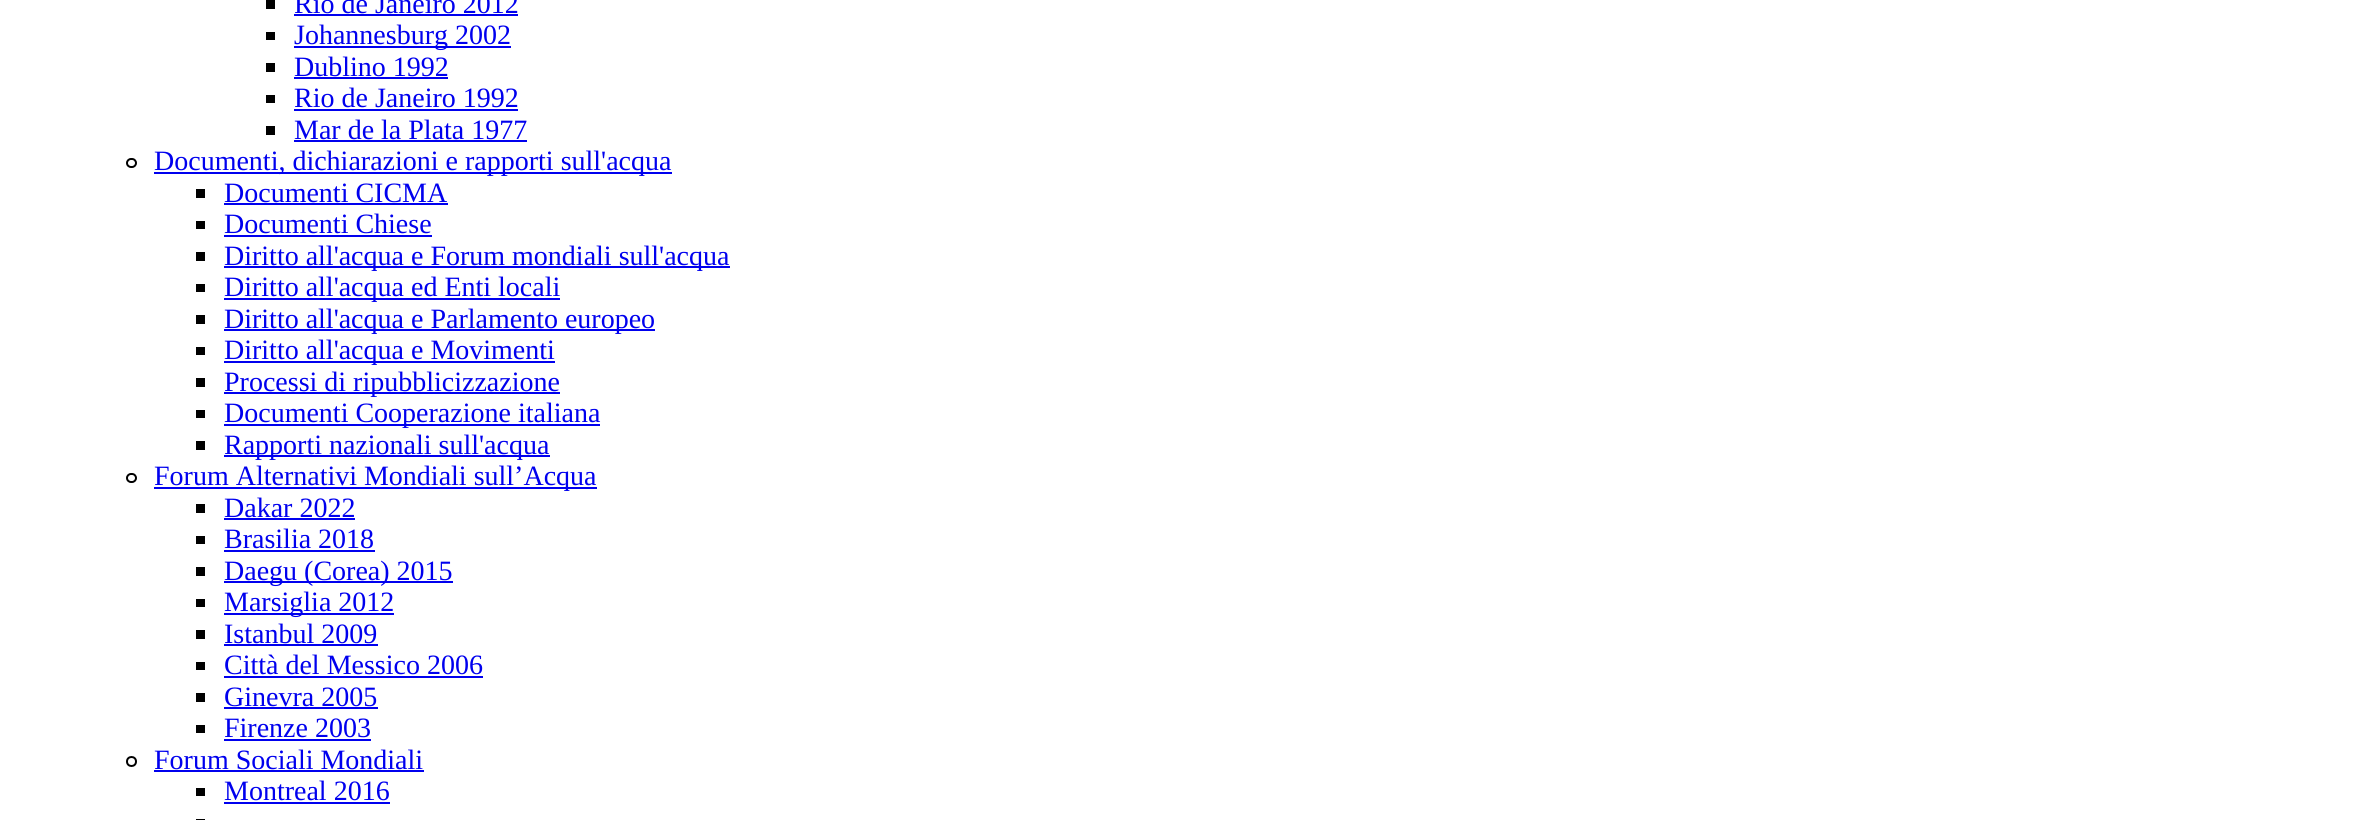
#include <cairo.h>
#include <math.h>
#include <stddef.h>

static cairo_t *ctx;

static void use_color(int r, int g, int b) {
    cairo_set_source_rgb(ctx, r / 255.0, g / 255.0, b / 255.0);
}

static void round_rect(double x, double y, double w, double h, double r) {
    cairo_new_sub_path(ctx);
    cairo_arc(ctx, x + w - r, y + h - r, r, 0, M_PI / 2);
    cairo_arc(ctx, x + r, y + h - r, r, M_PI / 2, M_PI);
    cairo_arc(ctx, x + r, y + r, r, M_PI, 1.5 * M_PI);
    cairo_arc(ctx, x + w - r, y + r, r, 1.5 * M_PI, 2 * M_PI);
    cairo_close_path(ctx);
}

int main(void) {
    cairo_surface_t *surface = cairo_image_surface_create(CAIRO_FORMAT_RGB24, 2372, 820);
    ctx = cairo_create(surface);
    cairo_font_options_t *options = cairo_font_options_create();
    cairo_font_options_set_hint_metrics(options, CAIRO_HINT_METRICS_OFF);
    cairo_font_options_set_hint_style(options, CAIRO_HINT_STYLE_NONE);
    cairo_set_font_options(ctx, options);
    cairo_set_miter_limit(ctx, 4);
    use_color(255, 255, 255);
    cairo_paint(ctx);
    use_color(0, 0, 0);
    cairo_rectangle(ctx, 266, 0, 9, 9);
    cairo_fill(ctx);
    cairo_select_font_face(ctx, "Liberation Serif", CAIRO_FONT_SLANT_NORMAL, CAIRO_FONT_WEIGHT_NORMAL);
    cairo_set_font_size(ctx, 28);
    use_color(0, 0, 238);
    cairo_move_to(ctx, 294, 13);
    cairo_show_text(ctx, "Rio de Janeiro 2012");
    cairo_rectangle(ctx, 294, 14, 224, 2);
    cairo_fill(ctx);
    use_color(0, 0, 0);
    cairo_rectangle(ctx, 266, 32, 9, 8);
    cairo_fill(ctx);
    use_color(0, 0, 238);
    cairo_rectangle(ctx, 294, 46, 217, 2);
    cairo_fill(ctx);
    cairo_move_to(ctx, 294, 44);
    cairo_show_text(ctx, "Johannesburg 2002");
    use_color(0, 0, 0);
    cairo_rectangle(ctx, 266, 63, 9, 9);
    cairo_fill(ctx);
    use_color(0, 0, 238);
    cairo_move_to(ctx, 294, 76);
    cairo_show_text(ctx, "Dublino 1992");
    cairo_rectangle(ctx, 294, 77, 154, 2);
    cairo_fill(ctx);
    use_color(0, 0, 0);
    cairo_rectangle(ctx, 266, 95, 9, 8);
    cairo_fill(ctx);
    use_color(0, 0, 238);
    cairo_move_to(ctx, 294, 107);
    cairo_show_text(ctx, "Rio de Janeiro 1992");
    cairo_rectangle(ctx, 294, 109, 224, 2);
    cairo_fill(ctx);
    use_color(0, 0, 0);
    cairo_rectangle(ctx, 266, 126, 9, 9);
    cairo_fill(ctx);
    use_color(0, 0, 238);
    cairo_move_to(ctx, 294, 139);
    cairo_show_text(ctx, "Mar de la Plata 1977");
    cairo_rectangle(ctx, 294, 140, 233, 2);
    cairo_fill(ctx);
    round_rect(127, 159, 9, 8, 4);
    use_color(0, 0, 0);
    cairo_stroke(ctx);
    use_color(0, 0, 238);
    cairo_rectangle(ctx, 154, 172, 518, 2);
    cairo_fill(ctx);
    cairo_move_to(ctx, 154, 170);
    cairo_show_text(ctx, "Documenti, dichiarazioni e rapporti sull'acqua");
    use_color(0, 0, 0);
    cairo_rectangle(ctx, 196, 189, 9, 9);
    cairo_fill(ctx);
    use_color(0, 0, 238);
    cairo_move_to(ctx, 224, 202);
    cairo_show_text(ctx, "Documenti CICMA");
    cairo_rectangle(ctx, 224, 203, 224, 2);
    cairo_fill(ctx);
    use_color(0, 0, 0);
    cairo_rectangle(ctx, 196, 221, 9, 8);
    cairo_fill(ctx);
    use_color(0, 0, 238);
    cairo_move_to(ctx, 224, 233);
    cairo_show_text(ctx, "Documenti Chiese");
    cairo_rectangle(ctx, 224, 235, 208, 2);
    cairo_fill(ctx);
    use_color(0, 0, 0);
    cairo_rectangle(ctx, 196, 252, 9, 9);
    cairo_fill(ctx);
    use_color(0, 0, 238);
    cairo_rectangle(ctx, 224, 266, 506, 2);
    cairo_fill(ctx);
    cairo_move_to(ctx, 224, 265);
    cairo_show_text(ctx, "Diritto all'acqua e Forum mondiali sull'acqua");
    use_color(0, 0, 0);
    cairo_rectangle(ctx, 196, 284, 9, 8);
    cairo_fill(ctx);
    use_color(0, 0, 238);
    cairo_rectangle(ctx, 224, 298, 336, 2);
    cairo_fill(ctx);
    cairo_move_to(ctx, 224, 296);
    cairo_show_text(ctx, "Diritto all'acqua ed Enti locali");
    use_color(0, 0, 0);
    cairo_rectangle(ctx, 196, 315, 9, 9);
    cairo_fill(ctx);
    use_color(0, 0, 238);
    cairo_rectangle(ctx, 224, 329, 431, 2);
    cairo_fill(ctx);
    cairo_move_to(ctx, 224, 328);
    cairo_show_text(ctx, "Diritto all'acqua e Parlamento europeo");
    use_color(0, 0, 0);
    cairo_rectangle(ctx, 196, 347, 9, 8);
    cairo_fill(ctx);
    use_color(0, 0, 238);
    cairo_rectangle(ctx, 224, 361, 331, 2);
    cairo_fill(ctx);
    cairo_move_to(ctx, 224, 359);
    cairo_show_text(ctx, "Diritto all'acqua e Movimenti");
    use_color(0, 0, 0);
    cairo_rectangle(ctx, 196, 378, 9, 9);
    cairo_fill(ctx);
    use_color(0, 0, 238);
    cairo_rectangle(ctx, 224, 392, 336, 2);
    cairo_fill(ctx);
    cairo_move_to(ctx, 224, 391);
    cairo_show_text(ctx, "Processi di ripubblicizzazione");
    use_color(0, 0, 0);
    cairo_rectangle(ctx, 196, 410, 9, 8);
    cairo_fill(ctx);
    use_color(0, 0, 238);
    cairo_rectangle(ctx, 224, 424, 376, 2);
    cairo_fill(ctx);
    cairo_move_to(ctx, 224, 422);
    cairo_show_text(ctx, "Documenti Cooperazione italiana");
    use_color(0, 0, 0);
    cairo_rectangle(ctx, 196, 441, 9, 9);
    cairo_fill(ctx);
    use_color(0, 0, 238);
    cairo_rectangle(ctx, 224, 455, 326, 2);
    cairo_fill(ctx);
    cairo_move_to(ctx, 224, 454);
    cairo_show_text(ctx, "Rapporti nazionali sull'acqua");
    round_rect(127, 474, 9, 8, 4);
    use_color(0, 0, 0);
    cairo_stroke(ctx);
    use_color(0, 0, 238);
    cairo_rectangle(ctx, 154, 487, 443, 2);
    cairo_fill(ctx);
    cairo_move_to(ctx, 154, 485);
    cairo_show_text(ctx, "Forum Alternativi Mondiali sull’Acqua");
    use_color(0, 0, 0);
    cairo_rectangle(ctx, 196, 504, 9, 9);
    cairo_fill(ctx);
    use_color(0, 0, 238);
    cairo_move_to(ctx, 224, 517);
    cairo_show_text(ctx, "Dakar 2022");
    cairo_rectangle(ctx, 224, 518, 131, 2);
    cairo_fill(ctx);
    use_color(0, 0, 0);
    cairo_rectangle(ctx, 196, 536, 9, 8);
    cairo_fill(ctx);
    use_color(0, 0, 238);
    cairo_move_to(ctx, 224, 548);
    cairo_show_text(ctx, "Brasilia 2018");
    cairo_rectangle(ctx, 224, 550, 151, 2);
    cairo_fill(ctx);
    use_color(0, 0, 0);
    cairo_rectangle(ctx, 196, 567, 9, 9);
    cairo_fill(ctx);
    use_color(0, 0, 238);
    cairo_rectangle(ctx, 224, 581, 229, 2);
    cairo_fill(ctx);
    cairo_move_to(ctx, 224, 580);
    cairo_show_text(ctx, "Daegu (Corea) 2015");
    use_color(0, 0, 0);
    cairo_rectangle(ctx, 196, 599, 9, 8);
    cairo_fill(ctx);
    use_color(0, 0, 238);
    cairo_rectangle(ctx, 224, 613, 170, 2);
    cairo_fill(ctx);
    cairo_move_to(ctx, 224, 611);
    cairo_show_text(ctx, "Marsiglia 2012");
    use_color(0, 0, 0);
    cairo_rectangle(ctx, 196, 630, 9, 9);
    cairo_fill(ctx);
    use_color(0, 0, 238);
    cairo_move_to(ctx, 224, 643);
    cairo_show_text(ctx, "Istanbul 2009");
    cairo_rectangle(ctx, 224, 644, 154, 2);
    cairo_fill(ctx);
    use_color(0, 0, 0);
    cairo_rectangle(ctx, 196, 662, 9, 8);
    cairo_fill(ctx);
    use_color(0, 0, 238);
    cairo_move_to(ctx, 224, 674);
    cairo_show_text(ctx, "Città del Messico 2006");
    cairo_rectangle(ctx, 224, 676, 259, 2);
    cairo_fill(ctx);
    use_color(0, 0, 0);
    cairo_rectangle(ctx, 196, 693, 9, 9);
    cairo_fill(ctx);
    use_color(0, 0, 238);
    cairo_move_to(ctx, 224, 706);
    cairo_show_text(ctx, "Ginevra 2005");
    cairo_rectangle(ctx, 224, 707, 154, 2);
    cairo_fill(ctx);
    use_color(0, 0, 0);
    cairo_rectangle(ctx, 196, 725, 9, 8);
    cairo_fill(ctx);
    use_color(0, 0, 238);
    cairo_move_to(ctx, 224, 737);
    cairo_show_text(ctx, "Firenze 2003");
    cairo_rectangle(ctx, 224, 739, 147, 2);
    cairo_fill(ctx);
    cairo_arc(ctx, 131.5, 761.5, 4.5, 0, 2 * M_PI);
    use_color(0, 0, 0);
    cairo_stroke(ctx);
    use_color(0, 0, 238);
    cairo_move_to(ctx, 154, 769);
    cairo_show_text(ctx, "Forum Sociali Mondiali");
    cairo_rectangle(ctx, 154, 770, 270, 2);
    cairo_fill(ctx);
    use_color(0, 0, 0);
    cairo_rectangle(ctx, 196, 788, 9, 8);
    cairo_fill(ctx);
    use_color(0, 0, 238);
    cairo_move_to(ctx, 224, 800);
    cairo_show_text(ctx, "Montreal 2016");
    cairo_rectangle(ctx, 224, 802, 166, 2);
    cairo_fill(ctx);
    use_color(0, 0, 0);
    cairo_rectangle(ctx, 196, 819, 9, 1);
    cairo_fill(ctx);
    cairo_surface_write_to_png(surface, "result.png");
    cairo_font_options_destroy(options);
    cairo_destroy(ctx);
    cairo_surface_destroy(surface);
    return 0;
}
